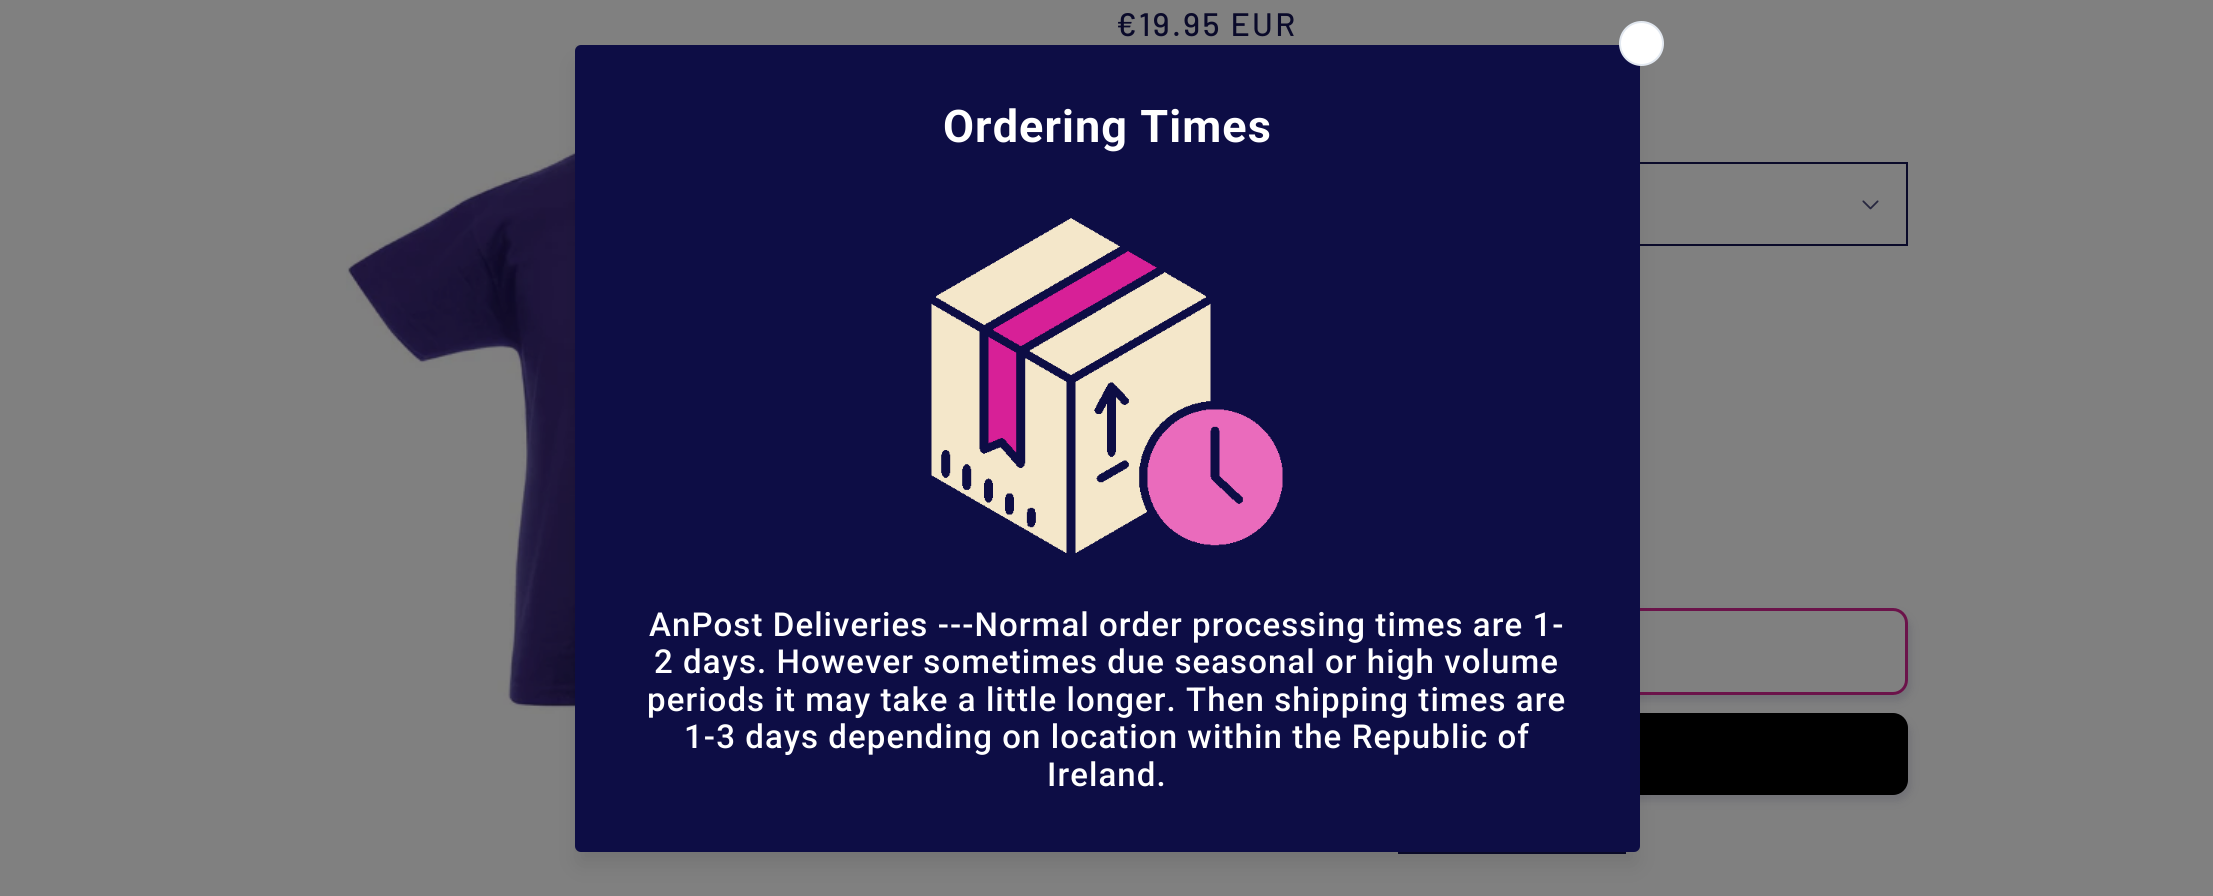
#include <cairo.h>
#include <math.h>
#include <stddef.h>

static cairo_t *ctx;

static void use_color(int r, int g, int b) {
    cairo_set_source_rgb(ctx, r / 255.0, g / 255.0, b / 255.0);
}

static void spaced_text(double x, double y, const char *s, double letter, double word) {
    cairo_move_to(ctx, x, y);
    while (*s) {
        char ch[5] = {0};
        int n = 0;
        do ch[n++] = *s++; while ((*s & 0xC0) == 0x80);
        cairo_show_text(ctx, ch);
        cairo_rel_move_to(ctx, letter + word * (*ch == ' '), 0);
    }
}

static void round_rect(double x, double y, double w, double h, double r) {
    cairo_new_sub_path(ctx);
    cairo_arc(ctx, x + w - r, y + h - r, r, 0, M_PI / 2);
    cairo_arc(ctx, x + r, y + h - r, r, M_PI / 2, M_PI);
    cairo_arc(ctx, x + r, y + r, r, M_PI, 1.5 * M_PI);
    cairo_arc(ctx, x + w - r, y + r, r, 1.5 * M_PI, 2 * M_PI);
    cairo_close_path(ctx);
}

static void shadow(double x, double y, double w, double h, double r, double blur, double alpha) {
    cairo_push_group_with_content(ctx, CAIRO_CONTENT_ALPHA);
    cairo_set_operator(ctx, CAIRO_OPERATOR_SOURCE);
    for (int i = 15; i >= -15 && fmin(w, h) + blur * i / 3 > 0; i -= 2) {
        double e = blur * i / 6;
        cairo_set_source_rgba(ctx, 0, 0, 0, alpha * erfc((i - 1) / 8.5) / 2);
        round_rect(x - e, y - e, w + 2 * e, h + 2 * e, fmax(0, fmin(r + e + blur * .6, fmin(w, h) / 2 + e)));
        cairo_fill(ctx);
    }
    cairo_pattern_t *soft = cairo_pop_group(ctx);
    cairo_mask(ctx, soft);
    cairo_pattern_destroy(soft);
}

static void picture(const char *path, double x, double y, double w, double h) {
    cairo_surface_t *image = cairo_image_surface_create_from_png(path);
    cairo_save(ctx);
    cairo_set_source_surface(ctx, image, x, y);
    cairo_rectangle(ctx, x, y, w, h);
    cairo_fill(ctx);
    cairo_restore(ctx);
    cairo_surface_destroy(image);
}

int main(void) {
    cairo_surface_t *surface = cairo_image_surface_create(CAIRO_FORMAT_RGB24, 2213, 896);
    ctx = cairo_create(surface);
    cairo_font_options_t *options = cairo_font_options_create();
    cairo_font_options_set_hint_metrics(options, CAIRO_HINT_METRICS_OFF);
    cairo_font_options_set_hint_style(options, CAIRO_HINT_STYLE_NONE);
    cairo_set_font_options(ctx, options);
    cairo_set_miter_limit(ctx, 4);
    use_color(128, 128, 128);
    cairo_paint(ctx);
    cairo_select_font_face(ctx, "Barlow Medium", CAIRO_FONT_SLANT_NORMAL, CAIRO_FONT_WEIGHT_NORMAL);
    cairo_set_font_size(ctx, 32.5);
    use_color(10, 10, 42);
    spaced_text(1116, 36, "€19.95 EUR", 2.25, 0);
    picture("img1.png", 1862, 200, 17, 10);
    cairo_rectangle(ctx, 1117, 163, 790, 82);
    cairo_stroke(ctx);
    use_color(56, 56, 81);
    shadow(1119, 614, 792, 87, 15, 4, 0.2);
    use_color(128, 128, 128);
    round_rect(1117.5, 609.5, 789, 84, 13.5);
    cairo_fill_preserve(ctx);
    cairo_set_line_width(ctx, 3);
    cairo_stroke(ctx);
    round_rect(1117.5, 609.5, 789, 84, 13.5);
    use_color(107, 19, 74);
    cairo_stroke(ctx);
    use_color(56, 56, 81);
    shadow(1119, 719, 792, 82, 15, 4, 0.2);
    use_color(0, 0, 0);
    round_rect(1116, 713, 792, 82, 15);
    cairo_fill(ctx);
    use_color(10, 10, 42);
    cairo_rectangle(ctx, 1398, 852, 228, 2);
    cairo_fill(ctx);
    picture("img2.png", 346, 132, 229, 582);
    use_color(0, 0, 0);
    shadow(579, 65, 1056, 798, 1, 11, 0.1);
    cairo_save(ctx);
    cairo_rectangle(ctx, 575, 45, 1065, 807);
    cairo_clip(ctx);
    shadow(579, 50, 1056, 798, 1, 15, 0.12);
    cairo_restore(ctx);
    use_color(13, 13, 69);
    round_rect(575, 45, 1065, 807, 6);
    cairo_fill(ctx);
    use_color(255, 255, 255);
    cairo_arc(ctx, 1641.5, 43.5, 21.5, 0, 2 * M_PI);
    cairo_fill_preserve(ctx);
    use_color(226, 232, 240);
    cairo_set_line_width(ctx, 2);
    cairo_stroke(ctx);
    cairo_select_font_face(ctx, "Roboto", CAIRO_FONT_SLANT_NORMAL, CAIRO_FONT_WEIGHT_BOLD);
    cairo_set_font_size(ctx, 45);
    use_color(255, 255, 255);
    spaced_text(943, 142, "Ordering Times", 1.08, 0);
    picture("img3.png", 931, 218, 352, 335);
    cairo_select_font_face(ctx, "Roboto Medium", CAIRO_FONT_SLANT_NORMAL, CAIRO_FONT_WEIGHT_NORMAL);
    cairo_set_font_size(ctx, 33);
    spaced_text(649, 636, "AnPost Deliveries ---Normal order processing times are 1-", 1.08, 0);
    spaced_text(654, 673, "2 days. However sometimes due seasonal or high volume", 1.08, 0);
    spaced_text(647, 711, "periods it may take a little longer. Then shipping times are", 1.08, 0);
    spaced_text(684, 748, "1-3 days depending on location within the Republic of", 1.08, 0);
    spaced_text(1047, 786, "Ireland.", 1.08, 0);
    cairo_surface_write_to_png(surface, "result.png");
    cairo_font_options_destroy(options);
    cairo_destroy(ctx);
    cairo_surface_destroy(surface);
    return 0;
}
